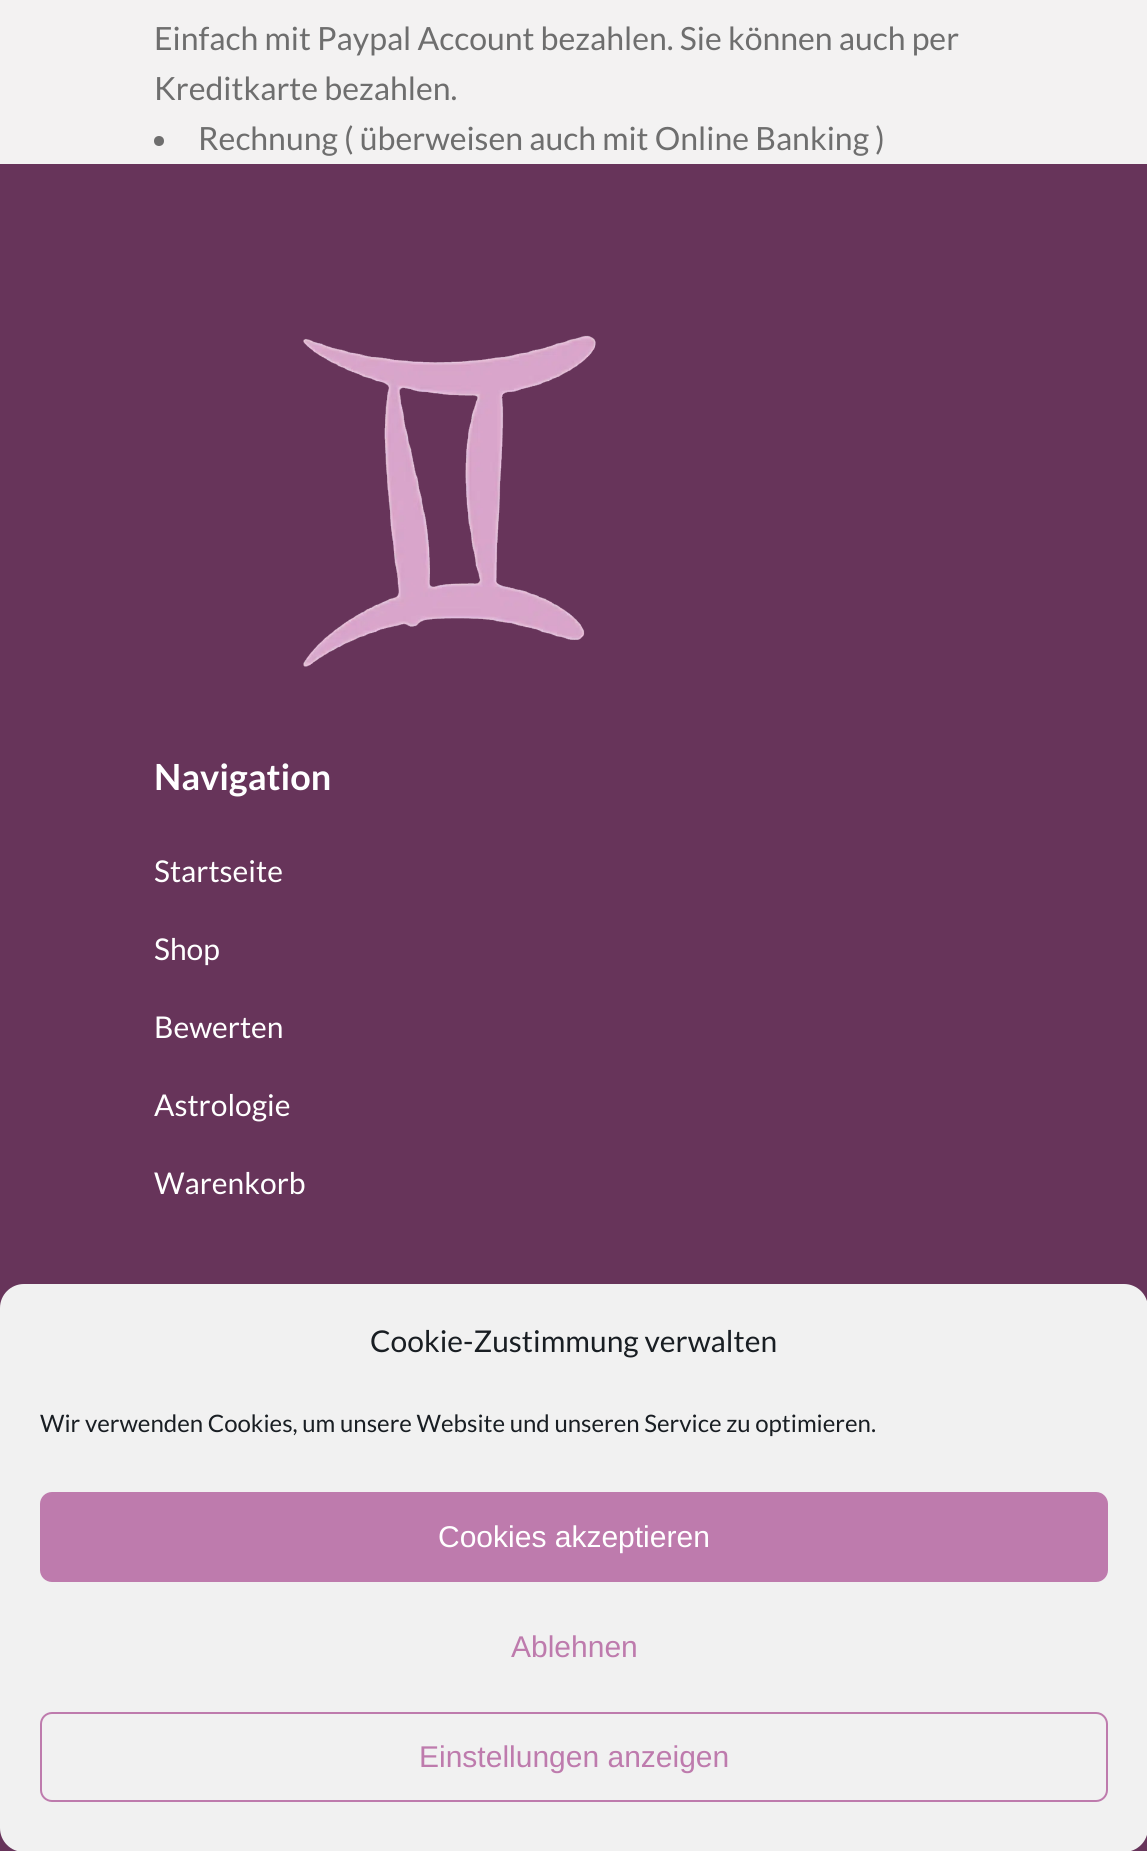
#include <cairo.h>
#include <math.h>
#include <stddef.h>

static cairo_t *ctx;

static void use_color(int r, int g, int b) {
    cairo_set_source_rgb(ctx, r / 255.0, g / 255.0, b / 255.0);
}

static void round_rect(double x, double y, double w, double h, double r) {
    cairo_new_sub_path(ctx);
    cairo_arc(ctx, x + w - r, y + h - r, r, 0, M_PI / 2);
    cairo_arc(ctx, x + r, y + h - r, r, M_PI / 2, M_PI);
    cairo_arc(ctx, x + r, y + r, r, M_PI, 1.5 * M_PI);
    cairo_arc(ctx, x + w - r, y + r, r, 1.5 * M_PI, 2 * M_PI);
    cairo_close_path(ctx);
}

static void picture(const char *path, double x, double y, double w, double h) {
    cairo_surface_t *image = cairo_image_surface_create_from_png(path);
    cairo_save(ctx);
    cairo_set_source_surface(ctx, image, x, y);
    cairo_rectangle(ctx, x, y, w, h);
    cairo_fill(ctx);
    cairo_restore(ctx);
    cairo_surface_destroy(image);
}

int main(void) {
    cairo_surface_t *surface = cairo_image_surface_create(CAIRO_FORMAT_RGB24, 1147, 1851);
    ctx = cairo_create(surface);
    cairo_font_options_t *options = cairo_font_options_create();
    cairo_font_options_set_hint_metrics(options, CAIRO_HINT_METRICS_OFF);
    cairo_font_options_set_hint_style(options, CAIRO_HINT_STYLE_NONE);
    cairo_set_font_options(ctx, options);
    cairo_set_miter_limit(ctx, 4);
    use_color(243, 242, 242);
    cairo_paint(ctx);
    cairo_select_font_face(ctx, "Lato", CAIRO_FONT_SLANT_NORMAL, CAIRO_FONT_WEIGHT_NORMAL);
    cairo_set_font_size(ctx, 32);
    use_color(110, 110, 110);
    cairo_move_to(ctx, 154, 50);
    cairo_show_text(ctx, "Einfach mit Paypal Account bezahlen. Sie können auch per");
    cairo_move_to(ctx, 154, 100);
    cairo_show_text(ctx, "Kreditkarte bezahlen.");
    cairo_new_path(ctx);
    cairo_arc(ctx, 159, 141, 5, 0, 2 * M_PI);
    cairo_fill(ctx);
    cairo_move_to(ctx, 198, 150);
    cairo_show_text(ctx, "Rechnung ( überweisen auch mit Online Banking )");
    use_color(103, 52, 90);
    cairo_rectangle(ctx, 0, 164, 1147, 1687);
    cairo_fill(ctx);
    picture("img1.png", 303, 335, 293, 332);
    cairo_select_font_face(ctx, "Lato", CAIRO_FONT_SLANT_NORMAL, CAIRO_FONT_WEIGHT_BOLD);
    cairo_set_font_size(ctx, 36);
    use_color(255, 255, 255);
    cairo_move_to(ctx, 154, 790);
    cairo_show_text(ctx, "Navigation");
    cairo_select_font_face(ctx, "Lato", CAIRO_FONT_SLANT_NORMAL, CAIRO_FONT_WEIGHT_NORMAL);
    cairo_set_font_size(ctx, 30);
    cairo_move_to(ctx, 154, 882);
    cairo_show_text(ctx, "Startseite");
    cairo_move_to(ctx, 154, 960);
    cairo_show_text(ctx, "Shop");
    cairo_move_to(ctx, 154, 1038);
    cairo_show_text(ctx, "Bewerten");
    cairo_move_to(ctx, 154, 1116);
    cairo_show_text(ctx, "Astrologie");
    cairo_move_to(ctx, 154, 1194);
    cairo_show_text(ctx, "Warenkorb");
    use_color(241, 241, 241);
    round_rect(0, 1284, 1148, 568, 24);
    cairo_fill(ctx);
    use_color(25, 30, 35);
    cairo_move_to(ctx, 370, 1352);
    cairo_show_text(ctx, "Cookie-Zustimmung verwalten");
    cairo_set_font_size(ctx, 24);
    cairo_move_to(ctx, 40, 1432);
    cairo_show_text(ctx, "Wir verwenden Cookies, um unsere Website und unseren Service zu optimieren.");
    use_color(190, 123, 173);
    round_rect(41, 1493, 1066, 88, 11);
    cairo_fill_preserve(ctx);
    cairo_stroke(ctx);
    cairo_select_font_face(ctx, "Liberation Sans", CAIRO_FONT_SLANT_NORMAL, CAIRO_FONT_WEIGHT_NORMAL);
    cairo_set_font_size(ctx, 30);
    use_color(255, 255, 255);
    cairo_move_to(ctx, 438, 1547);
    cairo_show_text(ctx, "Cookies akzeptieren");
    use_color(190, 123, 173);
    cairo_move_to(ctx, 511, 1657);
    cairo_show_text(ctx, "Ablehnen");
    round_rect(41, 1713, 1066, 88, 11);
    cairo_stroke(ctx);
    cairo_move_to(ctx, 419, 1767);
    cairo_show_text(ctx, "Einstellungen anzeigen");
    cairo_surface_write_to_png(surface, "result.png");
    cairo_font_options_destroy(options);
    cairo_destroy(ctx);
    cairo_surface_destroy(surface);
    return 0;
}
